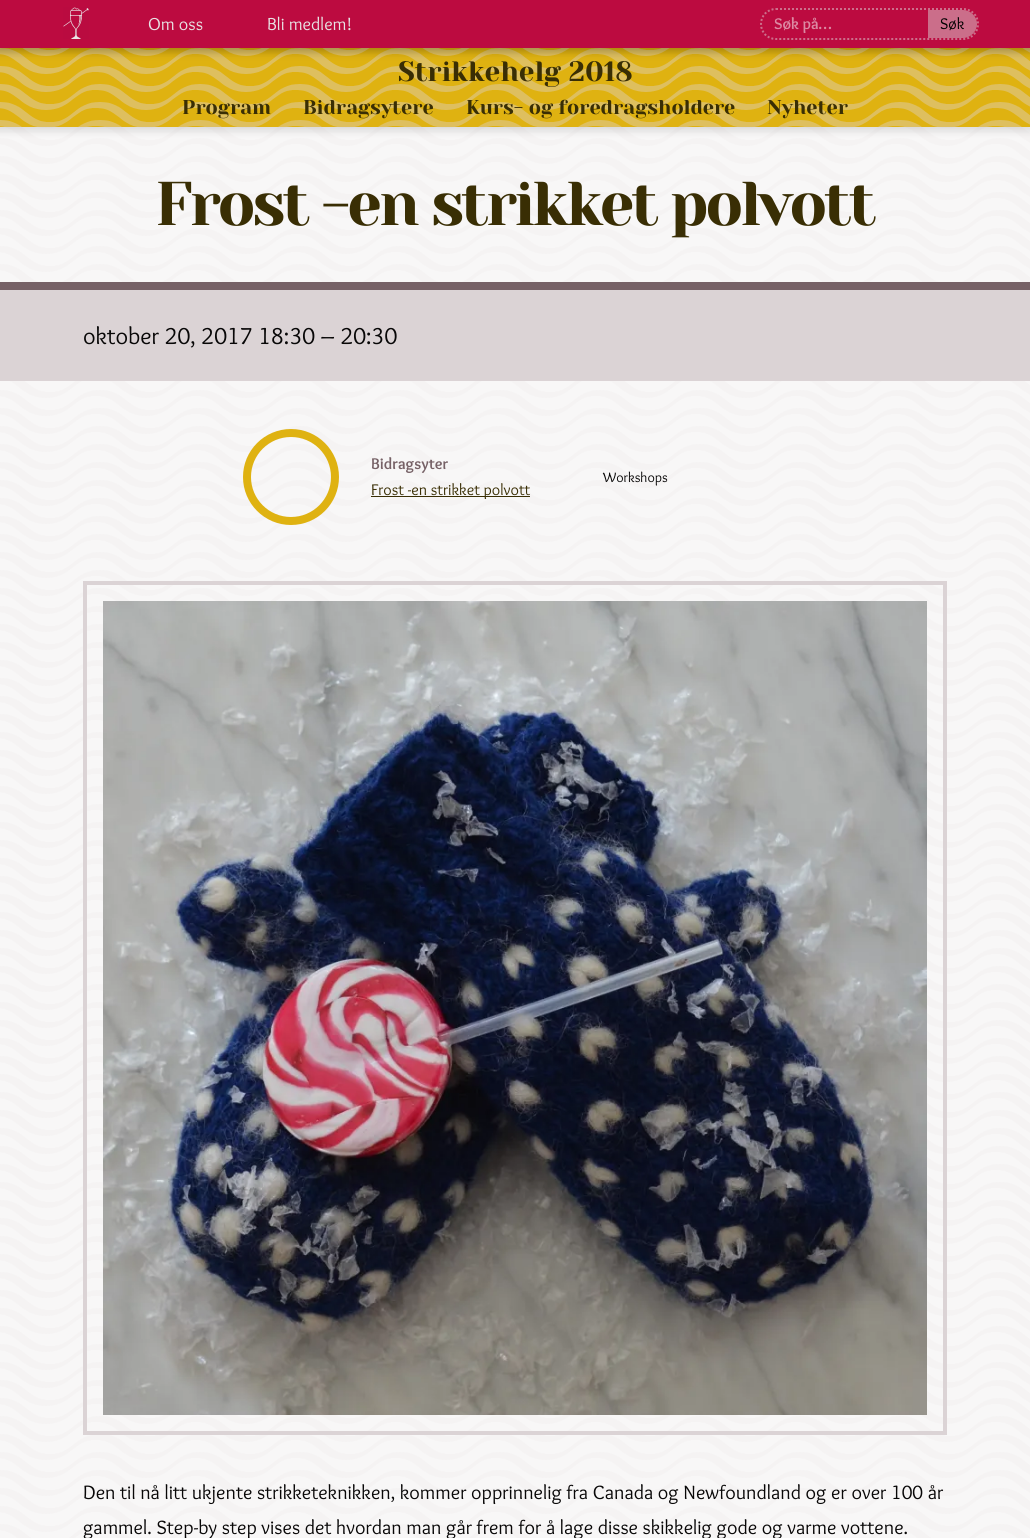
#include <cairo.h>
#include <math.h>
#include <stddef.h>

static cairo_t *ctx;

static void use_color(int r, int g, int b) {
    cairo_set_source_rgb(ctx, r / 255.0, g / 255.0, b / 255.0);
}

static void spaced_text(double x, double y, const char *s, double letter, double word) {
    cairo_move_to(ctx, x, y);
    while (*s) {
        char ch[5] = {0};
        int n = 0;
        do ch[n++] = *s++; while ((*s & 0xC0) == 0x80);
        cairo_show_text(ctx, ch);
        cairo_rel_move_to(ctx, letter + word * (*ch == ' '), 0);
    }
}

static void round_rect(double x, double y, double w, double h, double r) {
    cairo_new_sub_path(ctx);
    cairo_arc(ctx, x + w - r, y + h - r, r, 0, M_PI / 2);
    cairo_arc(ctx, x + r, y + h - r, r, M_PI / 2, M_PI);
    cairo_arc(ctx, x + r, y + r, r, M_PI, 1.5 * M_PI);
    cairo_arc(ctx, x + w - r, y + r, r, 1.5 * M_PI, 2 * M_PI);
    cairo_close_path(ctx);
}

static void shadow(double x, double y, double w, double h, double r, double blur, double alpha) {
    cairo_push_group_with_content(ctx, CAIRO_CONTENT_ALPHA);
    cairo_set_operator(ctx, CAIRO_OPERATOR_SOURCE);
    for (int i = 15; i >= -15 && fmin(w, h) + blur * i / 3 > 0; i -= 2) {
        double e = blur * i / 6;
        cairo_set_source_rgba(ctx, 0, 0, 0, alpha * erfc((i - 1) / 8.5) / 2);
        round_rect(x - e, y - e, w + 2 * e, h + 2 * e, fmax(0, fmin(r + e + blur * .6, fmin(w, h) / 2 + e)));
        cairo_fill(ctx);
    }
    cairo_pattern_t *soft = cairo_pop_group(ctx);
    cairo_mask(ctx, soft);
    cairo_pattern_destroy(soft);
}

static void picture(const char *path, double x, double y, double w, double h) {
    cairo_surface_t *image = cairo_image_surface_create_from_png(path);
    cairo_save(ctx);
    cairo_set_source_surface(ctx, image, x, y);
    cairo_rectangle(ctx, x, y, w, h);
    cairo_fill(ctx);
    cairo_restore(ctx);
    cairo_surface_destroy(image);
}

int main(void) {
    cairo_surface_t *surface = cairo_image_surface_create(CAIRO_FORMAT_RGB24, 1030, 1538);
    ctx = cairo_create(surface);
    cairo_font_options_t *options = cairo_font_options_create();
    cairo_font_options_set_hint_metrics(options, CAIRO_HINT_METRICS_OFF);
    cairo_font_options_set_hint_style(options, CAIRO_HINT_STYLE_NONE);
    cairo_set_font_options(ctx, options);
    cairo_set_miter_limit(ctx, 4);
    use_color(248, 247, 247);
    cairo_paint(ctx);
    picture("img2.png", 0, 127, 1030, 1411);
    use_color(0, 0, 0);
    shadow(-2, 48, 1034, 83, 0, 4, 0.12);
    use_color(223, 178, 17);
    cairo_rectangle(ctx, 0, 48, 1030, 79);
    cairo_fill(ctx);
    picture("img3.png", 0, 48, 1030, 79);
    use_color(0, 0, 0);
    shadow(-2, 0, 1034, 52, 0, 4, 0.25);
    use_color(188, 11, 64);
    cairo_rectangle(ctx, 0, 0, 1030, 48);
    cairo_fill(ctx);
    picture("img1.png", 63, 7, 26, 32);
    cairo_select_font_face(ctx, "Overlock", CAIRO_FONT_SLANT_NORMAL, CAIRO_FONT_WEIGHT_NORMAL);
    cairo_set_font_size(ctx, 18);
    use_color(232, 227, 228);
    cairo_move_to(ctx, 148, 30);
    cairo_show_text(ctx, "Om oss");
    cairo_move_to(ctx, 267, 30);
    cairo_show_text(ctx, "Bli medlem!");
    cairo_new_path(ctx);
    cairo_move_to(ctx, 776, 9);
    cairo_line_to(ctx, 963, 9);
    cairo_curve_to(ctx, 971.5, 9, 978, 15.5, 978, 24);
    cairo_curve_to(ctx, 978, 32.5, 971.5, 39, 963, 39);
    cairo_line_to(ctx, 776, 39);
    cairo_curve_to(ctx, 767.5, 39, 761, 32.5, 761, 24);
    cairo_curve_to(ctx, 761, 15.5, 767.5, 9, 776, 9);
    cairo_close_path(ctx);
    use_color(204, 111, 139);
    cairo_set_dash(ctx, (double[]){2, 2}, 2, 0);
    cairo_stroke(ctx);
    cairo_select_font_face(ctx, "Overlock", CAIRO_FONT_SLANT_NORMAL, CAIRO_FONT_WEIGHT_BOLD);
    cairo_set_font_size(ctx, 16);
    use_color(220, 138, 163);
    cairo_move_to(ctx, 774, 29);
    cairo_show_text(ctx, "Søk på…");
    cairo_set_source_rgba(ctx, 0.859, 0.827, 0.835, 0.5);
    cairo_new_path(ctx);
    cairo_move_to(ctx, 928, 10);
    cairo_line_to(ctx, 963, 10);
    cairo_curve_to(ctx, 970.5, 10, 977, 16.5, 977, 24);
    cairo_curve_to(ctx, 977, 31.5, 970.5, 38, 963, 38);
    cairo_line_to(ctx, 928, 38);
    cairo_close_path(ctx);
    cairo_fill(ctx);
    cairo_select_font_face(ctx, "Overlock", CAIRO_FONT_SLANT_NORMAL, CAIRO_FONT_WEIGHT_NORMAL);
    use_color(0, 0, 0);
    cairo_move_to(ctx, 940, 29);
    cairo_show_text(ctx, "Søk");
    cairo_select_font_face(ctx, "Yeseva One", CAIRO_FONT_SLANT_NORMAL, CAIRO_FONT_WEIGHT_NORMAL);
    cairo_set_font_size(ctx, 28);
    use_color(57, 46, 4);
    cairo_move_to(ctx, 398, 81);
    cairo_show_text(ctx, "Strikkehelg 2018");
    cairo_set_font_size(ctx, 20);
    cairo_move_to(ctx, 182, 114);
    cairo_show_text(ctx, "Program");
    cairo_move_to(ctx, 303, 114);
    cairo_show_text(ctx, "Bidragsytere");
    cairo_move_to(ctx, 466, 114);
    cairo_show_text(ctx, "Kurs- og foredragsholdere");
    cairo_move_to(ctx, 767, 114);
    cairo_show_text(ctx, "Nyheter");
    cairo_set_font_size(ctx, 61.75);
    spaced_text(155, 225, "Frost -en strikket polvott", -3.1, 0);
    use_color(219, 211, 213);
    cairo_rectangle(ctx, 0, 290, 1030, 91);
    cairo_fill(ctx);
    use_color(118, 97, 102);
    cairo_rectangle(ctx, 0, 282, 1030, 8);
    cairo_fill(ctx);
    cairo_select_font_face(ctx, "Overlock", CAIRO_FONT_SLANT_NORMAL, CAIRO_FONT_WEIGHT_NORMAL);
    cairo_set_font_size(ctx, 24);
    use_color(8, 7, 7);
    cairo_move_to(ctx, 83, 344);
    cairo_show_text(ctx, "oktober 20, 2017 18:30 – 20:30");
    cairo_new_path(ctx);
    cairo_arc(ctx, 291, 477, 44, 0, 2 * M_PI);
    use_color(223, 178, 17);
    cairo_set_line_width(ctx, 8);
    cairo_set_dash(ctx, NULL, 0, 0);
    cairo_stroke(ctx);
    cairo_select_font_face(ctx, "Overlock", CAIRO_FONT_SLANT_NORMAL, CAIRO_FONT_WEIGHT_BOLD);
    cairo_set_font_size(ctx, 16);
    use_color(118, 97, 102);
    cairo_move_to(ctx, 371, 469);
    cairo_show_text(ctx, "Bidragsyter");
    use_color(57, 46, 4);
    cairo_rectangle(ctx, 371, 496, 159, 1);
    cairo_fill(ctx);
    cairo_select_font_face(ctx, "Overlock", CAIRO_FONT_SLANT_NORMAL, CAIRO_FONT_WEIGHT_NORMAL);
    cairo_move_to(ctx, 371, 495);
    cairo_show_text(ctx, "Frost -en strikket polvott");
    cairo_set_font_size(ctx, 14);
    use_color(8, 7, 7);
    cairo_move_to(ctx, 603, 482);
    cairo_show_text(ctx, "Workshops");
    cairo_rectangle(ctx, 85, 583, 860, 850);
    use_color(219, 211, 213);
    cairo_set_line_width(ctx, 4);
    cairo_stroke(ctx);
    picture("img4.png", 103, 601, 824, 814);
    cairo_set_font_size(ctx, 20);
    use_color(8, 7, 7);
    cairo_move_to(ctx, 83, 1499);
    cairo_show_text(ctx, "Den til nå litt ukjente strikketeknikken, kommer opprinnelig fra Canada og Newfoundland og er over 100 år");
    cairo_move_to(ctx, 83, 1534);
    cairo_show_text(ctx, "gammel. Step-by step vises det hvordan man går frem for å lage disse skikkelig gode og varme vottene.");
    cairo_surface_write_to_png(surface, "result.png");
    cairo_font_options_destroy(options);
    cairo_destroy(ctx);
    cairo_surface_destroy(surface);
    return 0;
}
